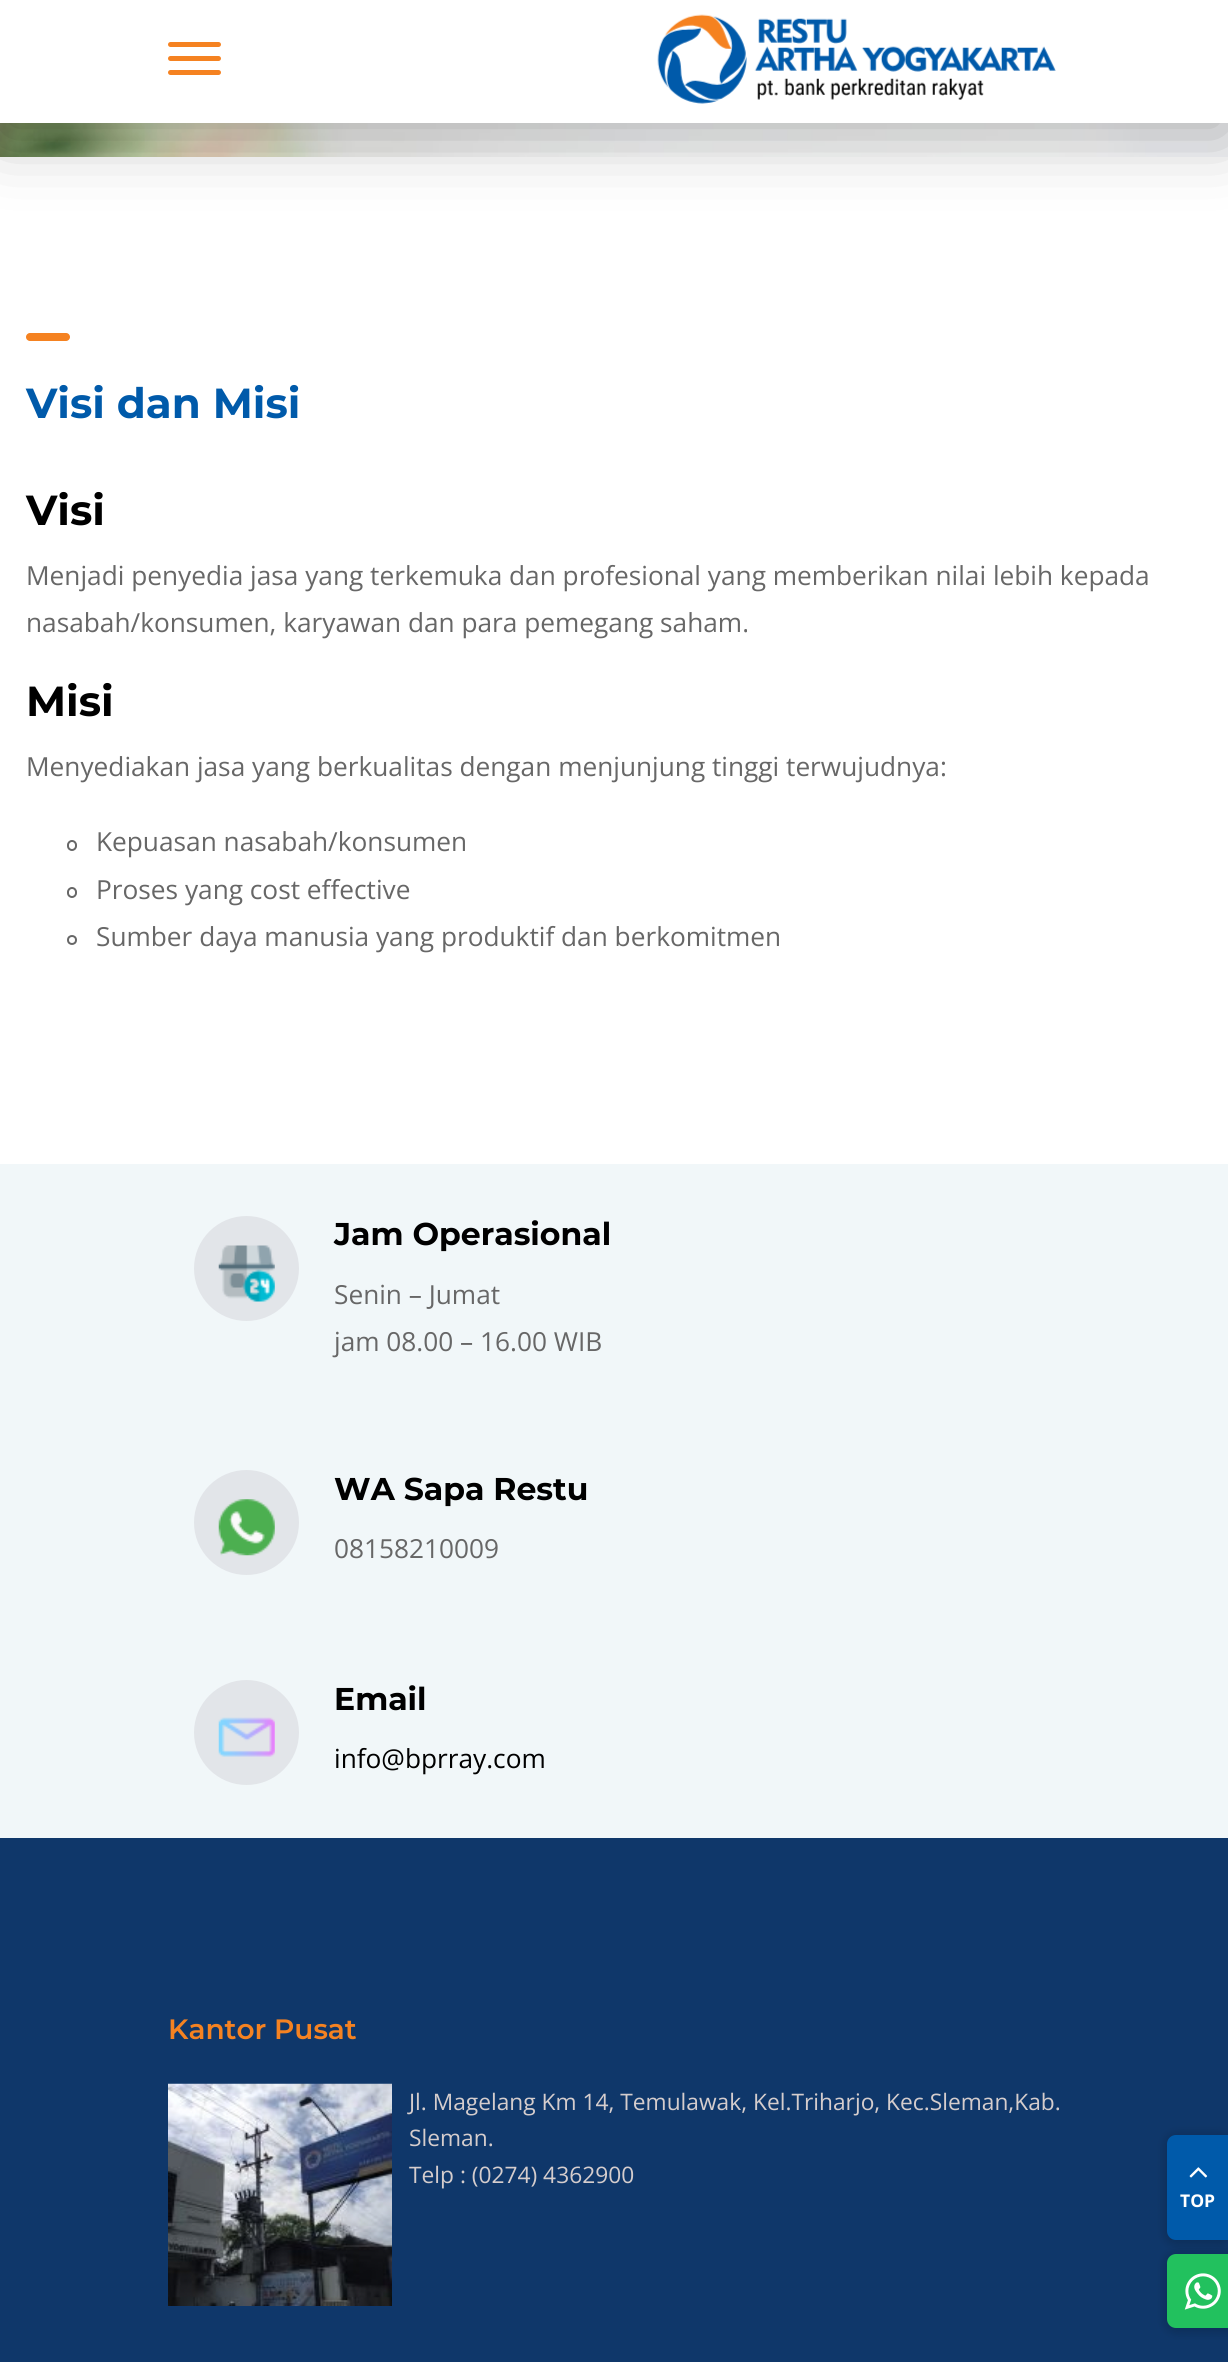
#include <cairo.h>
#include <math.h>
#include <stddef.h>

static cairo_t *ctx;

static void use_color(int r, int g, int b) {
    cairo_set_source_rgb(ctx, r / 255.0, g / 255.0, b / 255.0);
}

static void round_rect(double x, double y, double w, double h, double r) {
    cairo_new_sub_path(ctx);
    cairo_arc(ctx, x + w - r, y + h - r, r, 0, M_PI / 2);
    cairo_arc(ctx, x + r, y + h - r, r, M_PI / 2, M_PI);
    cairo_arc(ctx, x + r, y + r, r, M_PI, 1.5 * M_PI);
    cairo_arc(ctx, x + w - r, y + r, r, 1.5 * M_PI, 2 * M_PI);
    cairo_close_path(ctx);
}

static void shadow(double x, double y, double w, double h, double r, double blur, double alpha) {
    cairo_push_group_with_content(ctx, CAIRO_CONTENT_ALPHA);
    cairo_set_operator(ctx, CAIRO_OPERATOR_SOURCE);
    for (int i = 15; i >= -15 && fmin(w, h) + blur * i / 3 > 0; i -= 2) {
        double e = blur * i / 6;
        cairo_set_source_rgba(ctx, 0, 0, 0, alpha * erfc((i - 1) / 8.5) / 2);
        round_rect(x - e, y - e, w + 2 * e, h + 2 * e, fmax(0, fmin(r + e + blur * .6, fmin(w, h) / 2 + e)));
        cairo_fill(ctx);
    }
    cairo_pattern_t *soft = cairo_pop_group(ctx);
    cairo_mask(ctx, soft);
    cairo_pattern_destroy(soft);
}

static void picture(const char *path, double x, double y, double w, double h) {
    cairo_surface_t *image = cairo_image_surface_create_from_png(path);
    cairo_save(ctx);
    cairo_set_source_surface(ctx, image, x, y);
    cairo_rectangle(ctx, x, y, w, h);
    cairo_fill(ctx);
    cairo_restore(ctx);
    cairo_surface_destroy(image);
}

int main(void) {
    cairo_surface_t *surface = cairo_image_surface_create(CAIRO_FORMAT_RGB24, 1228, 2362);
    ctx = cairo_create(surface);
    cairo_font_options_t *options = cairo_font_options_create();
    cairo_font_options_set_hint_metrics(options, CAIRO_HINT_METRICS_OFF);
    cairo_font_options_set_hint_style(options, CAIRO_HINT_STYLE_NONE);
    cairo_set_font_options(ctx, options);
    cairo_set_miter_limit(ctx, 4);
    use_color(255, 255, 255);
    cairo_paint(ctx);
    picture("img2.png", 0, 123, 1228, 34);
    use_color(0, 0, 0);
    shadow(0, 12, 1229, 123, 0, 35, 0.3);
    use_color(255, 255, 255);
    cairo_rectangle(ctx, 0, 0, 1228, 123);
    cairo_fill(ctx);
    use_color(245, 130, 33);
    round_rect(168, 42, 53, 5, 2.5);
    cairo_fill(ctx);
    round_rect(168, 56, 53, 5, 2.5);
    cairo_fill(ctx);
    round_rect(168, 70, 53, 5, 2.5);
    cairo_fill(ctx);
    picture("img1.png", 657, 14, 399, 90);
    round_rect(26, 333, 44, 8, 4);
    cairo_fill(ctx);
    cairo_select_font_face(ctx, "Montserrat", CAIRO_FONT_SLANT_NORMAL, CAIRO_FONT_WEIGHT_BOLD);
    cairo_set_font_size(ctx, 42);
    use_color(0, 90, 170);
    cairo_move_to(ctx, 26, 418);
    cairo_show_text(ctx, "Visi dan Misi");
    use_color(0, 0, 0);
    cairo_move_to(ctx, 26, 525);
    cairo_show_text(ctx, "Visi");
    cairo_select_font_face(ctx, "Open Sans", CAIRO_FONT_SLANT_NORMAL, CAIRO_FONT_WEIGHT_NORMAL);
    cairo_set_font_size(ctx, 26.25);
    use_color(103, 103, 103);
    cairo_move_to(ctx, 26, 585);
    cairo_show_text(ctx, "Menjadi penyedia jasa yang terkemuka dan profesional yang memberikan nilai lebih kepada");
    cairo_move_to(ctx, 26, 632);
    cairo_show_text(ctx, "nasabah/konsumen, karyawan dan para pemegang saham.");
    cairo_select_font_face(ctx, "Montserrat", CAIRO_FONT_SLANT_NORMAL, CAIRO_FONT_WEIGHT_BOLD);
    cairo_set_font_size(ctx, 42);
    use_color(0, 0, 0);
    cairo_move_to(ctx, 26, 716);
    cairo_show_text(ctx, "Misi");
    cairo_select_font_face(ctx, "Open Sans", CAIRO_FONT_SLANT_NORMAL, CAIRO_FONT_WEIGHT_NORMAL);
    cairo_set_font_size(ctx, 26.25);
    use_color(103, 103, 103);
    cairo_move_to(ctx, 26, 776);
    cairo_show_text(ctx, "Menyediakan jasa yang berkualitas dengan menjunjung tinggi terwujudnya:");
    round_rect(68, 841, 8, 9, 4);
    cairo_stroke(ctx);
    cairo_move_to(ctx, 96, 851);
    cairo_show_text(ctx, "Kepuasan nasabah/konsumen");
    round_rect(68, 888, 8, 9, 4);
    cairo_stroke(ctx);
    cairo_move_to(ctx, 96, 899);
    cairo_show_text(ctx, "Proses yang cost effective");
    cairo_new_path(ctx);
    cairo_arc(ctx, 72, 940, 4, 0, 2 * M_PI);
    cairo_stroke(ctx);
    cairo_move_to(ctx, 96, 946);
    cairo_show_text(ctx, "Sumber daya manusia yang produktif dan berkomitmen");
    use_color(241, 247, 249);
    cairo_rectangle(ctx, 0, 1164, 1228, 674);
    cairo_fill(ctx);
    use_color(226, 229, 233);
    cairo_arc(ctx, 246.5, 1268.5, 52.5, 0, 2 * M_PI);
    cairo_fill(ctx);
    picture("img3.png", 218, 1245, 57, 57);
    cairo_select_font_face(ctx, "Montserrat", CAIRO_FONT_SLANT_NORMAL, CAIRO_FONT_WEIGHT_BOLD);
    cairo_set_font_size(ctx, 31.5);
    use_color(0, 0, 0);
    cairo_move_to(ctx, 334, 1245);
    cairo_show_text(ctx, "Jam Operasional");
    cairo_select_font_face(ctx, "Open Sans", CAIRO_FONT_SLANT_NORMAL, CAIRO_FONT_WEIGHT_NORMAL);
    cairo_set_font_size(ctx, 26.25);
    use_color(103, 103, 103);
    cairo_move_to(ctx, 334, 1304);
    cairo_show_text(ctx, "Senin – Jumat");
    cairo_move_to(ctx, 334, 1351);
    cairo_show_text(ctx, "jam 08.00 – 16.00 WIB");
    use_color(226, 229, 233);
    cairo_new_path(ctx);
    cairo_arc(ctx, 246.5, 1522.5, 52.5, 0, 2 * M_PI);
    cairo_fill(ctx);
    picture("img4.png", 218, 1499, 57, 57);
    cairo_select_font_face(ctx, "Montserrat", CAIRO_FONT_SLANT_NORMAL, CAIRO_FONT_WEIGHT_BOLD);
    cairo_set_font_size(ctx, 31.5);
    use_color(0, 0, 0);
    cairo_move_to(ctx, 334, 1500);
    cairo_show_text(ctx, "WA Sapa Restu");
    cairo_select_font_face(ctx, "Open Sans", CAIRO_FONT_SLANT_NORMAL, CAIRO_FONT_WEIGHT_NORMAL);
    cairo_set_font_size(ctx, 26.25);
    use_color(103, 103, 103);
    cairo_move_to(ctx, 334, 1558);
    cairo_show_text(ctx, "08158210009");
    use_color(226, 229, 233);
    cairo_new_path(ctx);
    cairo_arc(ctx, 246.5, 1732.5, 52.5, 0, 2 * M_PI);
    cairo_fill(ctx);
    picture("img5.png", 218, 1717, 57, 40);
    cairo_select_font_face(ctx, "Montserrat", CAIRO_FONT_SLANT_NORMAL, CAIRO_FONT_WEIGHT_BOLD);
    cairo_set_font_size(ctx, 31.5);
    use_color(0, 0, 0);
    cairo_move_to(ctx, 334, 1710);
    cairo_show_text(ctx, "Email");
    cairo_select_font_face(ctx, "Open Sans", CAIRO_FONT_SLANT_NORMAL, CAIRO_FONT_WEIGHT_NORMAL);
    cairo_set_font_size(ctx, 26.25);
    cairo_move_to(ctx, 334, 1768);
    cairo_show_text(ctx, "info@bprray.com");
    use_color(15, 55, 106);
    cairo_rectangle(ctx, 0, 1838, 1228, 524);
    cairo_fill(ctx);
    cairo_select_font_face(ctx, "Montserrat SemiBold", CAIRO_FONT_SLANT_NORMAL, CAIRO_FONT_WEIGHT_NORMAL);
    cairo_set_font_size(ctx, 28);
    use_color(245, 130, 33);
    cairo_move_to(ctx, 168, 2039);
    cairo_show_text(ctx, "Kantor Pusat");
    picture("img6.png", 168, 2083, 224, 223);
    cairo_select_font_face(ctx, "Open Sans", CAIRO_FONT_SLANT_NORMAL, CAIRO_FONT_WEIGHT_NORMAL);
    cairo_set_font_size(ctx, 22.75);
    use_color(213, 205, 205);
    cairo_move_to(ctx, 409, 2110);
    cairo_show_text(ctx, "Jl. Magelang Km 14, Temulawak, Kel.Triharjo, Kec.Sleman,Kab.");
    cairo_move_to(ctx, 409, 2146);
    cairo_show_text(ctx, "Sleman.");
    cairo_move_to(ctx, 409, 2183);
    cairo_show_text(ctx, "Telp : (0274) 4362900");
    use_color(0, 0, 0);
    shadow(1164, 2252, 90, 81, 12, 4.5, 0.15);
    use_color(34, 193, 94);
    cairo_new_path(ctx);
    cairo_move_to(ctx, 1176, 2254);
    cairo_line_to(ctx, 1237, 2254);
    cairo_line_to(ctx, 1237, 2328);
    cairo_line_to(ctx, 1176, 2328);
    cairo_curve_to(ctx, 1171, 2328, 1167, 2324, 1167, 2319);
    cairo_line_to(ctx, 1167, 2263);
    cairo_curve_to(ctx, 1167, 2258, 1171, 2254, 1176, 2254);
    cairo_close_path(ctx);
    cairo_fill(ctx);
    use_color(0, 0, 0);
    shadow(1164, 2133, 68, 112, 12, 4.5, 0.15);
    use_color(0, 90, 170);
    cairo_new_path(ctx);
    cairo_move_to(ctx, 1176, 2135);
    cairo_line_to(ctx, 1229, 2135);
    cairo_line_to(ctx, 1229, 2240);
    cairo_line_to(ctx, 1176, 2240);
    cairo_curve_to(ctx, 1171, 2240, 1167, 2236, 1167, 2231);
    cairo_line_to(ctx, 1167, 2144);
    cairo_curve_to(ctx, 1167, 2139, 1171, 2135, 1176, 2135);
    cairo_close_path(ctx);
    cairo_fill(ctx);
    picture("img7.png", 1189, 2167, 19, 11);
    cairo_select_font_face(ctx, "Open Sans", CAIRO_FONT_SLANT_NORMAL, CAIRO_FONT_WEIGHT_BOLD);
    cairo_set_font_size(ctx, 17.5);
    use_color(255, 255, 255);
    cairo_move_to(ctx, 1180, 2207);
    cairo_show_text(ctx, "TOP");
    picture("img8.png", 1184, 2273, 37, 37);
    cairo_surface_write_to_png(surface, "result.png");
    cairo_font_options_destroy(options);
    cairo_destroy(ctx);
    cairo_surface_destroy(surface);
    return 0;
}
